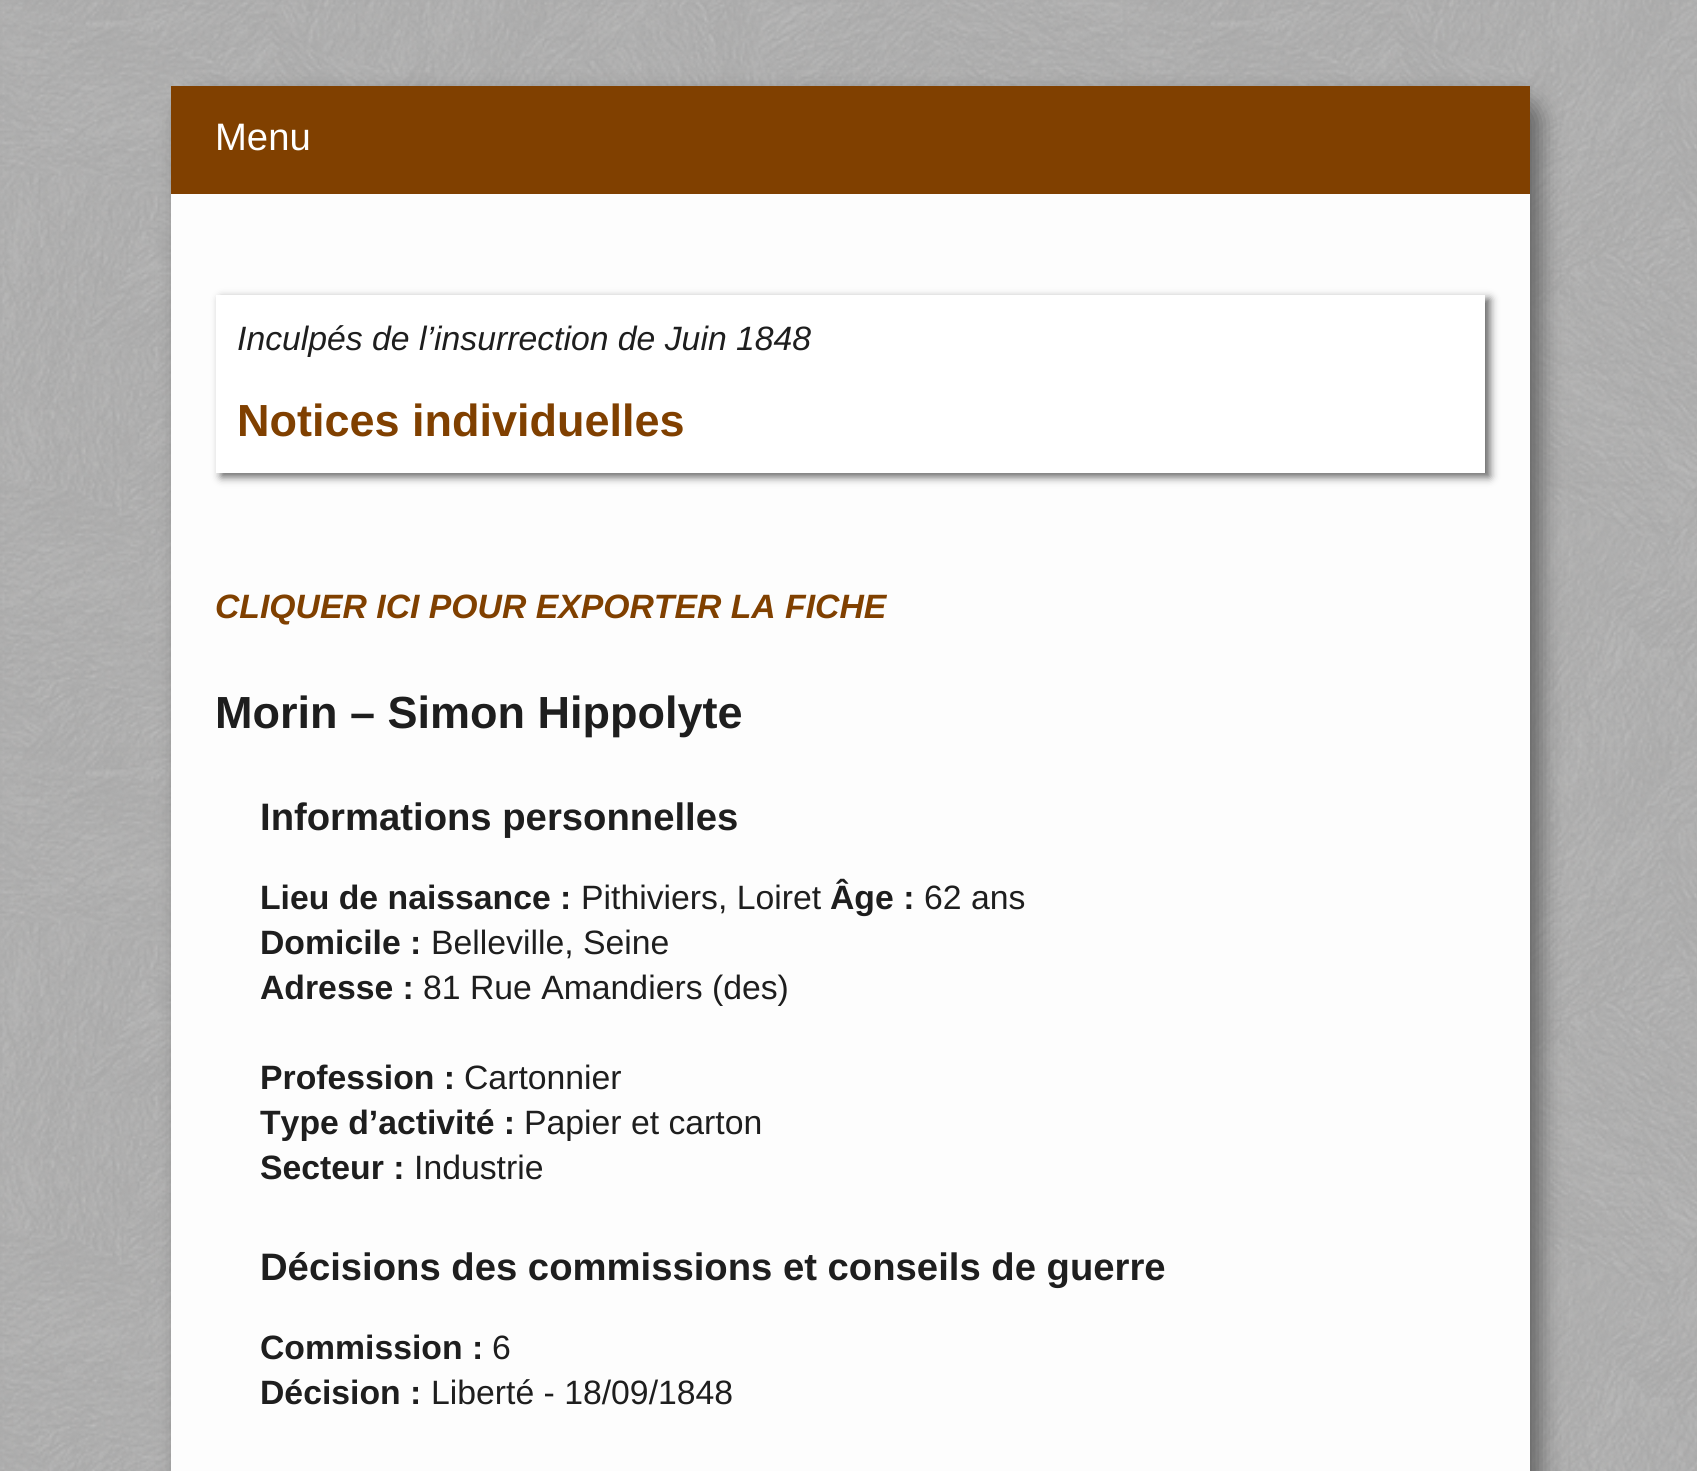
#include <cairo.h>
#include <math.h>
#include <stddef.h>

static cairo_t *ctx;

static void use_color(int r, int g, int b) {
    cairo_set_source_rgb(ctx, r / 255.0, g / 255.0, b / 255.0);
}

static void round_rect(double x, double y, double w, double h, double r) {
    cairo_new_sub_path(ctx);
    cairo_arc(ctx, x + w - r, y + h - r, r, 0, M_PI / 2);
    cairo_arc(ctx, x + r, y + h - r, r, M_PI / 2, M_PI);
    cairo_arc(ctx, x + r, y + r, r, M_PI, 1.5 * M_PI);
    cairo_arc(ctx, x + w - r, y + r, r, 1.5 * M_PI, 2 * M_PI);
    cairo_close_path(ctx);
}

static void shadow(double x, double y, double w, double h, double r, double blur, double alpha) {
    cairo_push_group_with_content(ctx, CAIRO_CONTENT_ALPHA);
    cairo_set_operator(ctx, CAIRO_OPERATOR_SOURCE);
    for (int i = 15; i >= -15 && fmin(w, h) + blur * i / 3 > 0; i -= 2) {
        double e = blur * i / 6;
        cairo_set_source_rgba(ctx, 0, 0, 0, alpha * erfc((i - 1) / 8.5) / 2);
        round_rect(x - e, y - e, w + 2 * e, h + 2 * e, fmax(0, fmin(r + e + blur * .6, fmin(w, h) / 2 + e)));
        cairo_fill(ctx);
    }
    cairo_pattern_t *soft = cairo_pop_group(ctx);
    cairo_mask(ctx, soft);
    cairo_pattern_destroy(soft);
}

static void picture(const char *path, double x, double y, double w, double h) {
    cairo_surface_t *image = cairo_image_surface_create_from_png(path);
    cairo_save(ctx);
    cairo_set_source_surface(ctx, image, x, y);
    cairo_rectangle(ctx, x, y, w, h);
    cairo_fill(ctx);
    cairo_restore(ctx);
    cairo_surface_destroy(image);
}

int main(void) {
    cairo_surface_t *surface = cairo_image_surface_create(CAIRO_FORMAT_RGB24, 1697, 1471);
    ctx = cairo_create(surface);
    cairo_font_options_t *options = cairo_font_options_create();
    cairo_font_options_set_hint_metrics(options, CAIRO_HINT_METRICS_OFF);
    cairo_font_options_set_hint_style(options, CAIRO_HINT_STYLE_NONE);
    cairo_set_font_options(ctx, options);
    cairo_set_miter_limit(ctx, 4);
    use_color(170, 170, 170);
    cairo_paint(ctx);
    picture("img1.png", 0, 0, 1697, 1471);
    cairo_save(ctx);
    cairo_set_fill_rule(ctx, CAIRO_FILL_RULE_EVEN_ODD);
    cairo_new_path(ctx);
    cairo_move_to(ctx, 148, 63);
    cairo_line_to(ctx, 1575, 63);
    cairo_line_to(ctx, 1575, 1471);
    cairo_line_to(ctx, 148, 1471);
    cairo_close_path(ctx);
    cairo_move_to(ctx, 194, 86);
    cairo_line_to(ctx, 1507, 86);
    cairo_curve_to(ctx, 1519.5, 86, 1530, 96.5, 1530, 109);
    cairo_line_to(ctx, 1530, 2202);
    cairo_curve_to(ctx, 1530, 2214.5, 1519.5, 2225, 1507, 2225);
    cairo_line_to(ctx, 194, 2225);
    cairo_curve_to(ctx, 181.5, 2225, 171, 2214.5, 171, 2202);
    cairo_line_to(ctx, 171, 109);
    cairo_curve_to(ctx, 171, 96.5, 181.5, 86, 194, 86);
    cairo_close_path(ctx);
    cairo_clip(ctx);
    use_color(101, 101, 101);
    shadow(182, 97, 1359, 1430, 23, 11, 1);
    cairo_restore(ctx);
    use_color(128, 64, 0);
    cairo_rectangle(ctx, 171, 86, 1359, 108);
    cairo_fill(ctx);
    cairo_select_font_face(ctx, "Liberation Sans", CAIRO_FONT_SLANT_NORMAL, CAIRO_FONT_WEIGHT_NORMAL);
    cairo_set_font_size(ctx, 38.25);
    use_color(255, 255, 255);
    cairo_move_to(ctx, 215, 150);
    cairo_show_text(ctx, "Menu");
    cairo_set_source_rgba(ctx, 1, 1, 1, 0.97);
    cairo_rectangle(ctx, 171, 194, 1359, 1277);
    cairo_fill(ctx);
    use_color(101, 101, 101);
    shadow(221, 299, 1269, 178, 0, 4.5, 1);
    use_color(255, 255, 255);
    cairo_rectangle(ctx, 216, 295, 1269, 178);
    cairo_fill(ctx);
    cairo_select_font_face(ctx, "Liberation Sans", CAIRO_FONT_SLANT_ITALIC, CAIRO_FONT_WEIGHT_NORMAL);
    cairo_set_font_size(ctx, 33.75);
    use_color(30, 30, 30);
    cairo_move_to(ctx, 237, 350);
    cairo_show_text(ctx, "Inculpés de l’insurrection de Juin 1848");
    cairo_select_font_face(ctx, "Liberation Sans", CAIRO_FONT_SLANT_NORMAL, CAIRO_FONT_WEIGHT_BOLD);
    cairo_set_font_size(ctx, 45);
    use_color(128, 64, 0);
    cairo_move_to(ctx, 237, 436);
    cairo_show_text(ctx, "Notices individuelles");
    cairo_select_font_face(ctx, "Liberation Sans", CAIRO_FONT_SLANT_ITALIC, CAIRO_FONT_WEIGHT_BOLD);
    cairo_set_font_size(ctx, 33.75);
    cairo_move_to(ctx, 215, 618);
    cairo_show_text(ctx, "CLIQUER ICI POUR EXPORTER LA FICHE");
    cairo_select_font_face(ctx, "Liberation Sans", CAIRO_FONT_SLANT_NORMAL, CAIRO_FONT_WEIGHT_BOLD);
    cairo_set_font_size(ctx, 45);
    use_color(30, 30, 30);
    cairo_move_to(ctx, 215, 728);
    cairo_show_text(ctx, "Morin – Simon Hippolyte");
    cairo_set_font_size(ctx, 38.25);
    cairo_move_to(ctx, 260, 830);
    cairo_show_text(ctx, "Informations personnelles");
    cairo_set_font_size(ctx, 33.75);
    cairo_move_to(ctx, 260, 909);
    cairo_show_text(ctx, "Lieu de naissance :");
    cairo_select_font_face(ctx, "Liberation Sans", CAIRO_FONT_SLANT_NORMAL, CAIRO_FONT_WEIGHT_NORMAL);
    cairo_move_to(ctx, 581, 909);
    cairo_show_text(ctx, "Pithiviers, Loiret");
    cairo_select_font_face(ctx, "Liberation Sans", CAIRO_FONT_SLANT_NORMAL, CAIRO_FONT_WEIGHT_BOLD);
    cairo_move_to(ctx, 830, 909);
    cairo_show_text(ctx, "Âge :");
    cairo_select_font_face(ctx, "Liberation Sans", CAIRO_FONT_SLANT_NORMAL, CAIRO_FONT_WEIGHT_NORMAL);
    cairo_move_to(ctx, 924, 909);
    cairo_show_text(ctx, "62 ans");
    cairo_select_font_face(ctx, "Liberation Sans", CAIRO_FONT_SLANT_NORMAL, CAIRO_FONT_WEIGHT_BOLD);
    cairo_move_to(ctx, 260, 954);
    cairo_show_text(ctx, "Domicile :");
    cairo_select_font_face(ctx, "Liberation Sans", CAIRO_FONT_SLANT_NORMAL, CAIRO_FONT_WEIGHT_NORMAL);
    cairo_move_to(ctx, 431, 954);
    cairo_show_text(ctx, "Belleville, Seine");
    cairo_select_font_face(ctx, "Liberation Sans", CAIRO_FONT_SLANT_NORMAL, CAIRO_FONT_WEIGHT_BOLD);
    cairo_move_to(ctx, 260, 999);
    cairo_show_text(ctx, "Adresse :");
    cairo_select_font_face(ctx, "Liberation Sans", CAIRO_FONT_SLANT_NORMAL, CAIRO_FONT_WEIGHT_NORMAL);
    cairo_move_to(ctx, 423, 999);
    cairo_show_text(ctx, "81 Rue Amandiers (des)");
    cairo_select_font_face(ctx, "Liberation Sans", CAIRO_FONT_SLANT_NORMAL, CAIRO_FONT_WEIGHT_BOLD);
    cairo_move_to(ctx, 260, 1089);
    cairo_show_text(ctx, "Profession :");
    cairo_select_font_face(ctx, "Liberation Sans", CAIRO_FONT_SLANT_NORMAL, CAIRO_FONT_WEIGHT_NORMAL);
    cairo_move_to(ctx, 464, 1089);
    cairo_show_text(ctx, "Cartonnier");
    cairo_select_font_face(ctx, "Liberation Sans", CAIRO_FONT_SLANT_NORMAL, CAIRO_FONT_WEIGHT_BOLD);
    cairo_move_to(ctx, 260, 1134);
    cairo_show_text(ctx, "Type d’activité :");
    cairo_select_font_face(ctx, "Liberation Sans", CAIRO_FONT_SLANT_NORMAL, CAIRO_FONT_WEIGHT_NORMAL);
    cairo_move_to(ctx, 524, 1134);
    cairo_show_text(ctx, "Papier et carton");
    cairo_select_font_face(ctx, "Liberation Sans", CAIRO_FONT_SLANT_NORMAL, CAIRO_FONT_WEIGHT_BOLD);
    cairo_move_to(ctx, 260, 1179);
    cairo_show_text(ctx, "Secteur :");
    cairo_select_font_face(ctx, "Liberation Sans", CAIRO_FONT_SLANT_NORMAL, CAIRO_FONT_WEIGHT_NORMAL);
    cairo_move_to(ctx, 414, 1179);
    cairo_show_text(ctx, "Industrie");
    cairo_select_font_face(ctx, "Liberation Sans", CAIRO_FONT_SLANT_NORMAL, CAIRO_FONT_WEIGHT_BOLD);
    cairo_set_font_size(ctx, 38.25);
    cairo_move_to(ctx, 260, 1280);
    cairo_show_text(ctx, "Décisions des commissions et conseils de guerre");
    cairo_set_font_size(ctx, 33.75);
    cairo_move_to(ctx, 260, 1359);
    cairo_show_text(ctx, "Commission :");
    cairo_select_font_face(ctx, "Liberation Sans", CAIRO_FONT_SLANT_NORMAL, CAIRO_FONT_WEIGHT_NORMAL);
    cairo_move_to(ctx, 492, 1359);
    cairo_show_text(ctx, "6");
    cairo_select_font_face(ctx, "Liberation Sans", CAIRO_FONT_SLANT_NORMAL, CAIRO_FONT_WEIGHT_BOLD);
    cairo_move_to(ctx, 260, 1404);
    cairo_show_text(ctx, "Décision :");
    cairo_select_font_face(ctx, "Liberation Sans", CAIRO_FONT_SLANT_NORMAL, CAIRO_FONT_WEIGHT_NORMAL);
    cairo_move_to(ctx, 431, 1404);
    cairo_show_text(ctx, "Liberté - 18/09/1848");
    cairo_surface_write_to_png(surface, "result.png");
    cairo_font_options_destroy(options);
    cairo_destroy(ctx);
    cairo_surface_destroy(surface);
    return 0;
}
